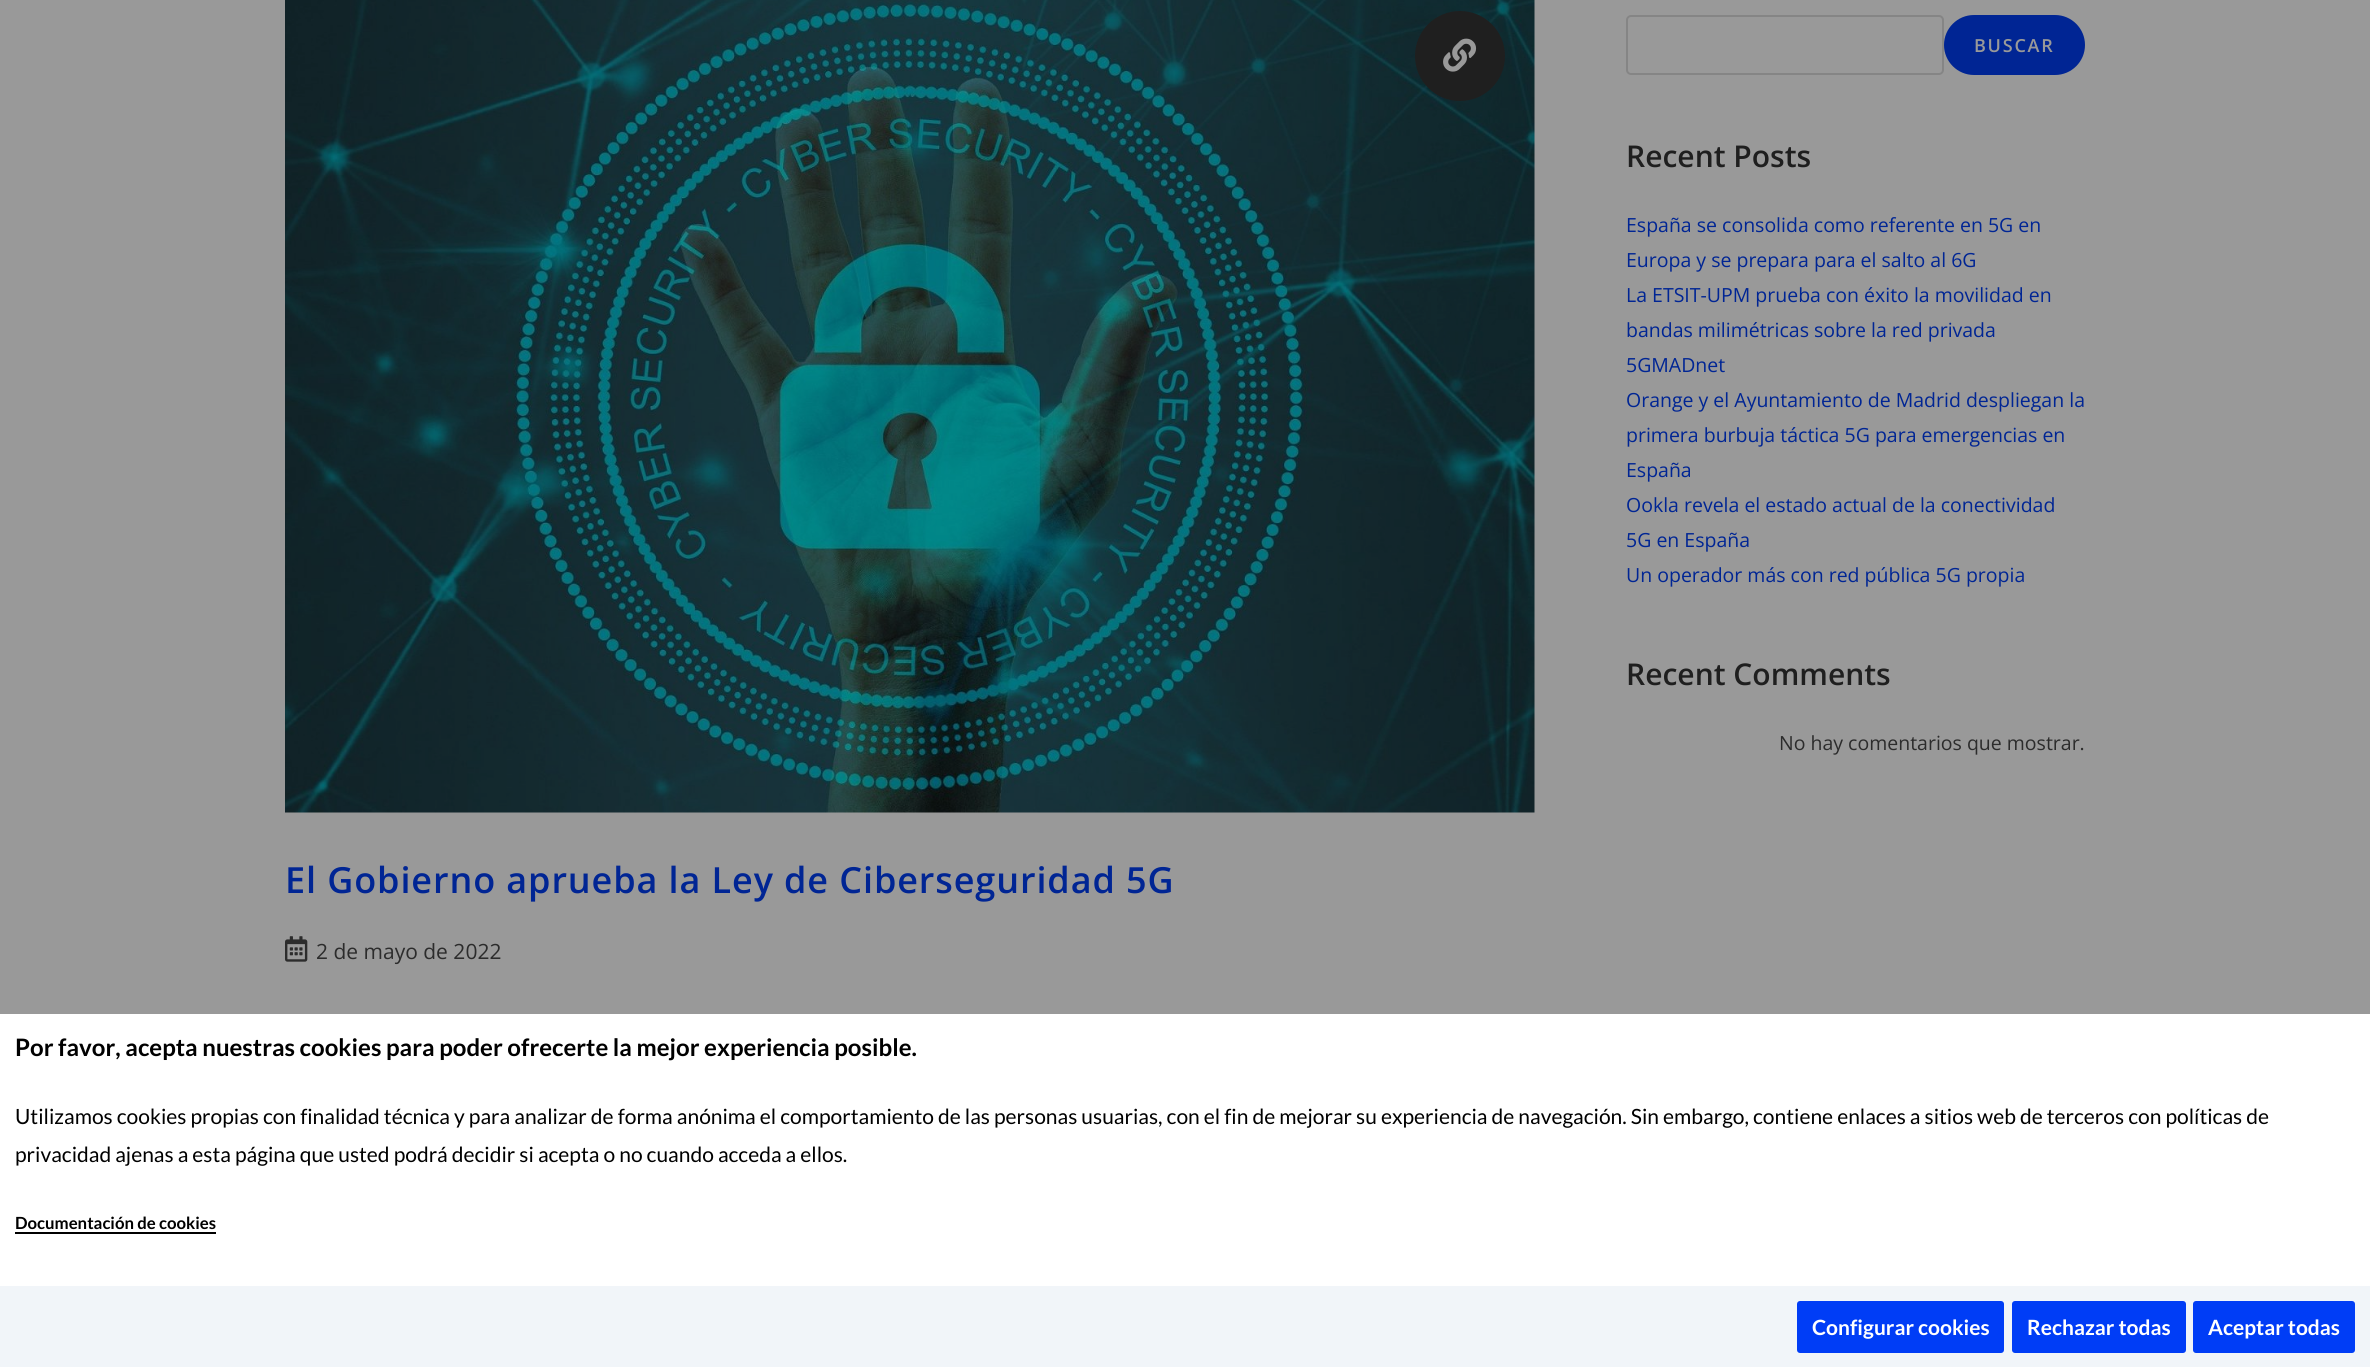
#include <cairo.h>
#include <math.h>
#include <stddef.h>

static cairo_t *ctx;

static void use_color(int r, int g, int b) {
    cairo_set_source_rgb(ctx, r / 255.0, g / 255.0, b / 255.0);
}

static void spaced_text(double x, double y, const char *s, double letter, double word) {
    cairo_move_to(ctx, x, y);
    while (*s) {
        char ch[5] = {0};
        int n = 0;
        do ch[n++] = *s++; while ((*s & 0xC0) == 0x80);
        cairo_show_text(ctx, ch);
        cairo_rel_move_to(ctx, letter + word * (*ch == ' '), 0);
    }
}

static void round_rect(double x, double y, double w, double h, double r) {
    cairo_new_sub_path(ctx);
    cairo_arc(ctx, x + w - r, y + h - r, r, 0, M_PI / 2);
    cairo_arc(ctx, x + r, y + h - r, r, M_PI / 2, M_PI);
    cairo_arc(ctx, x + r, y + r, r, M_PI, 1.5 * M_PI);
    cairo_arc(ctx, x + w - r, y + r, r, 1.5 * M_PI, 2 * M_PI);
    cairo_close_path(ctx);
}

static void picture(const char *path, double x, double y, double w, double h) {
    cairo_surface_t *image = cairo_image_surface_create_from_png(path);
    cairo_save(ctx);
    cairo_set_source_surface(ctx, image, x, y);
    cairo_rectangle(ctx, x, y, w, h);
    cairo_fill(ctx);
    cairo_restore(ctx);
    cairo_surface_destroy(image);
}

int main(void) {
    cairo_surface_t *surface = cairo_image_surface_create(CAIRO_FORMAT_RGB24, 2370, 1367);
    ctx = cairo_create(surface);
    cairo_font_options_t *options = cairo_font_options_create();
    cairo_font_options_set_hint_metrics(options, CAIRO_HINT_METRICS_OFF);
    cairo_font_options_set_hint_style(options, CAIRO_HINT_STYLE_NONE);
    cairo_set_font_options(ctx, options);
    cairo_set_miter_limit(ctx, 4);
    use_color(153, 153, 153);
    cairo_paint(ctx);
    round_rect(1627, 16, 316, 58, 4);
    use_color(133, 133, 133);
    cairo_stroke(ctx);
    use_color(0, 37, 148);
    round_rect(1944, 15, 141, 60, 30);
    cairo_fill(ctx);
    cairo_select_font_face(ctx, "Open Sans SemiBold", CAIRO_FONT_SLANT_NORMAL, CAIRO_FONT_WEIGHT_NORMAL);
    cairo_set_font_size(ctx, 18);
    use_color(153, 153, 153);
    spaced_text(1974, 52, "BUSCAR", 1.75, 0);
    cairo_set_font_size(ctx, 30);
    use_color(31, 31, 31);
    cairo_move_to(ctx, 1626, 167);
    cairo_show_text(ctx, "Recent Posts");
    cairo_select_font_face(ctx, "Open Sans", CAIRO_FONT_SLANT_NORMAL, CAIRO_FONT_WEIGHT_NORMAL);
    cairo_set_font_size(ctx, 19.5);
    use_color(0, 37, 148);
    cairo_move_to(ctx, 1626, 232);
    cairo_show_text(ctx, "España se consolida como referente en 5G en");
    cairo_move_to(ctx, 1626, 267);
    cairo_show_text(ctx, "Europa y se prepara para el salto al 6G");
    cairo_move_to(ctx, 1626, 302);
    cairo_show_text(ctx, "La ETSIT-UPM prueba con éxito la movilidad en");
    cairo_move_to(ctx, 1626, 337);
    cairo_show_text(ctx, "bandas milimétricas sobre la red privada");
    cairo_move_to(ctx, 1626, 372);
    cairo_show_text(ctx, "5GMADnet");
    cairo_move_to(ctx, 1626, 407);
    cairo_show_text(ctx, "Orange y el Ayuntamiento de Madrid despliegan la");
    cairo_move_to(ctx, 1626, 442);
    cairo_show_text(ctx, "primera burbuja táctica 5G para emergencias en");
    cairo_move_to(ctx, 1626, 477);
    cairo_show_text(ctx, "España");
    cairo_move_to(ctx, 1626, 512);
    cairo_show_text(ctx, "Ookla revela el estado actual de la conectividad");
    cairo_move_to(ctx, 1626, 547);
    cairo_show_text(ctx, "5G en España");
    cairo_move_to(ctx, 1626, 582);
    cairo_show_text(ctx, "Un operador más con red pública 5G propia");
    cairo_select_font_face(ctx, "Open Sans SemiBold", CAIRO_FONT_SLANT_NORMAL, CAIRO_FONT_WEIGHT_NORMAL);
    cairo_set_font_size(ctx, 30);
    use_color(31, 31, 31);
    cairo_move_to(ctx, 1626, 685);
    cairo_show_text(ctx, "Recent Comments");
    cairo_select_font_face(ctx, "Open Sans", CAIRO_FONT_SLANT_NORMAL, CAIRO_FONT_WEIGHT_NORMAL);
    cairo_set_font_size(ctx, 19.5);
    use_color(44, 44, 44);
    cairo_move_to(ctx, 1779, 750);
    cairo_show_text(ctx, "No hay comentarios que mostrar.");
    picture("img1.png", 285, 0, 1250, 813);
    use_color(31, 31, 31);
    cairo_arc(ctx, 1460, 56, 45, 0, 2 * M_PI);
    cairo_fill(ctx);
    picture("img2.png", 1443, 38, 34, 34);
    cairo_select_font_face(ctx, "Open Sans SemiBold", CAIRO_FONT_SLANT_NORMAL, CAIRO_FONT_WEIGHT_NORMAL);
    cairo_set_font_size(ctx, 36);
    use_color(0, 37, 148);
    spaced_text(285, 893, "El Gobierno aprueba la Ley de Ciberseguridad 5G", 0.9, 0);
    picture("img3.png", 285, 936, 23, 26);
    cairo_select_font_face(ctx, "Open Sans", CAIRO_FONT_SLANT_NORMAL, CAIRO_FONT_WEIGHT_NORMAL);
    cairo_set_font_size(ctx, 21);
    use_color(44, 44, 44);
    cairo_move_to(ctx, 316, 959);
    cairo_show_text(ctx, "2 de mayo de 2022");
    use_color(255, 255, 255);
    cairo_rectangle(ctx, 0, 1014, 2370, 272);
    cairo_fill(ctx);
    cairo_select_font_face(ctx, "Lato", CAIRO_FONT_SLANT_NORMAL, CAIRO_FONT_WEIGHT_BOLD);
    cairo_set_font_size(ctx, 24);
    use_color(0, 0, 0);
    cairo_move_to(ctx, 15, 1056);
    cairo_show_text(ctx, "Por favor, acepta nuestras cookies para poder ofrecerte la mejor experiencia posible.");
    cairo_select_font_face(ctx, "Lato", CAIRO_FONT_SLANT_NORMAL, CAIRO_FONT_WEIGHT_NORMAL);
    cairo_set_font_size(ctx, 21);
    cairo_move_to(ctx, 15, 1124);
    cairo_show_text(ctx, "Utilizamos cookies propias con finalidad técnica y para analizar de forma anónima el comportamiento de las personas usuarias, con el fin de mejorar su experiencia de navegación. Sin embargo, contiene enlaces a sitios web de terceros con políticas de");
    cairo_move_to(ctx, 15, 1162);
    cairo_show_text(ctx, "privacidad ajenas a esta página que usted podrá decidir si acepta o no cuando acceda a ellos.");
    cairo_select_font_face(ctx, "Lato", CAIRO_FONT_SLANT_NORMAL, CAIRO_FONT_WEIGHT_BOLD);
    cairo_set_font_size(ctx, 16.75);
    cairo_move_to(ctx, 15, 1229);
    cairo_show_text(ctx, "Documentación de cookies");
    cairo_rectangle(ctx, 15, 1232, 201, 2);
    cairo_fill(ctx);
    use_color(241, 245, 249);
    cairo_rectangle(ctx, 0, 1286, 2370, 81);
    cairo_fill(ctx);
    use_color(0, 61, 246);
    round_rect(1797, 1301, 207, 52, 3);
    cairo_fill(ctx);
    cairo_set_font_size(ctx, 21);
    use_color(255, 255, 255);
    cairo_move_to(ctx, 1812, 1335);
    cairo_show_text(ctx, "Configurar cookies");
    use_color(0, 61, 246);
    round_rect(2012, 1301, 174, 52, 3);
    cairo_fill(ctx);
    use_color(255, 255, 255);
    cairo_move_to(ctx, 2027, 1335);
    cairo_show_text(ctx, "Rechazar todas");
    use_color(0, 61, 246);
    round_rect(2193, 1301, 162, 52, 3);
    cairo_fill(ctx);
    use_color(255, 255, 255);
    cairo_move_to(ctx, 2208, 1335);
    cairo_show_text(ctx, "Aceptar todas");
    cairo_surface_write_to_png(surface, "result.png");
    cairo_font_options_destroy(options);
    cairo_destroy(ctx);
    cairo_surface_destroy(surface);
    return 0;
}
